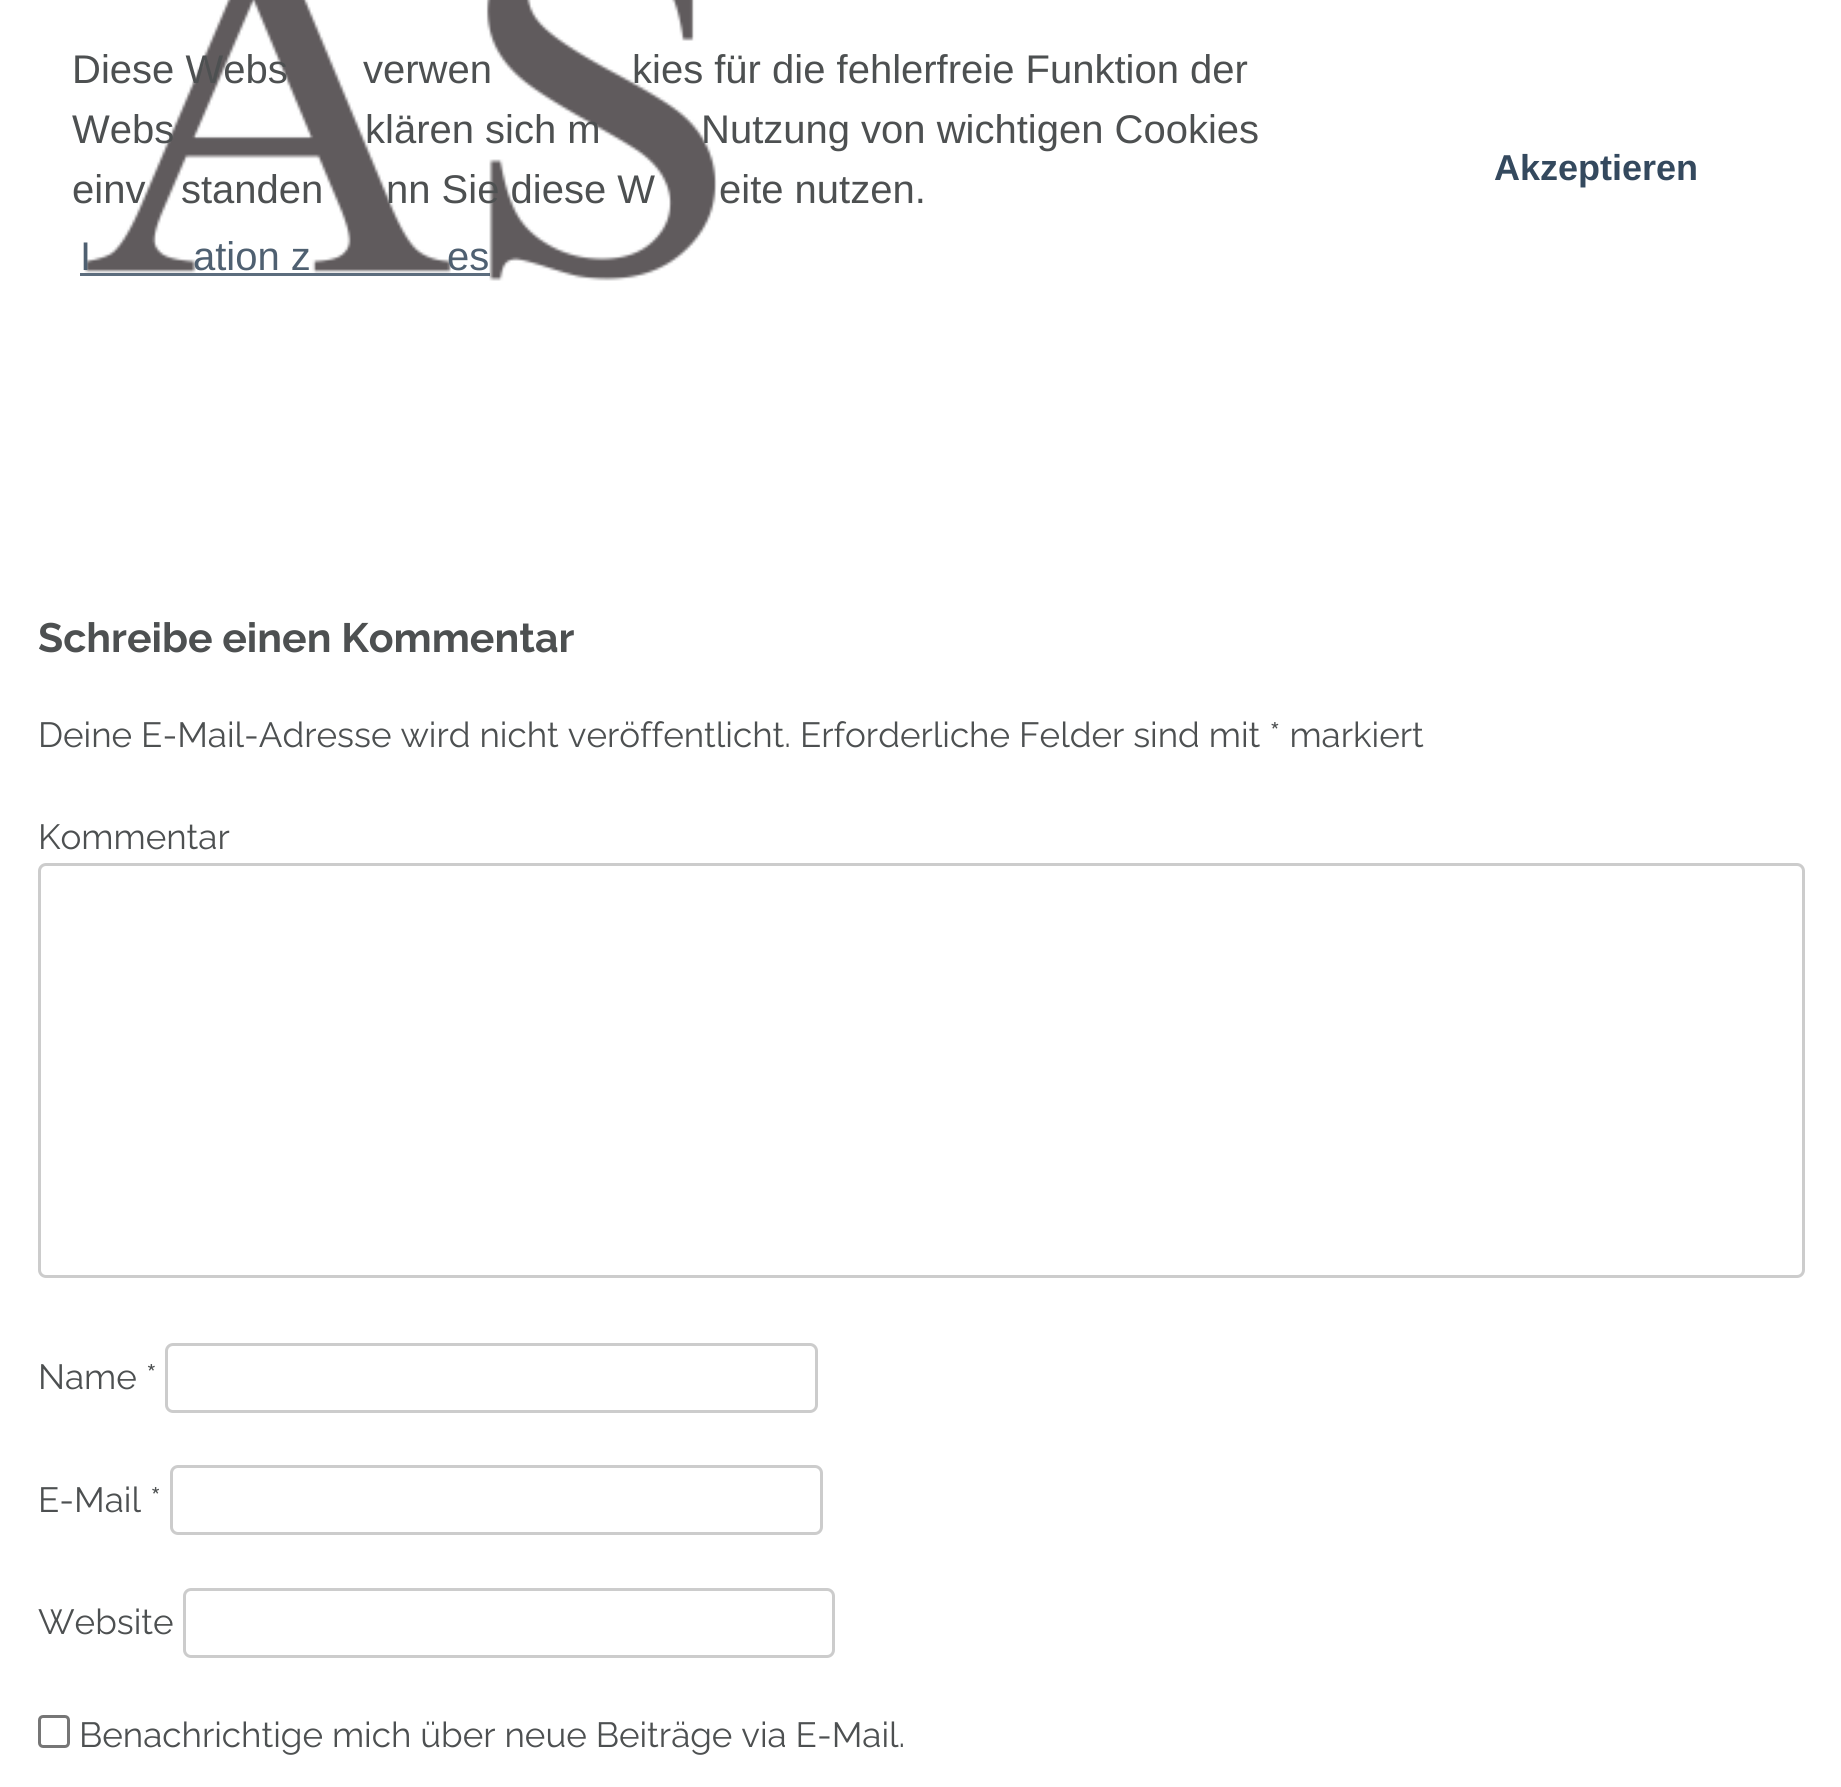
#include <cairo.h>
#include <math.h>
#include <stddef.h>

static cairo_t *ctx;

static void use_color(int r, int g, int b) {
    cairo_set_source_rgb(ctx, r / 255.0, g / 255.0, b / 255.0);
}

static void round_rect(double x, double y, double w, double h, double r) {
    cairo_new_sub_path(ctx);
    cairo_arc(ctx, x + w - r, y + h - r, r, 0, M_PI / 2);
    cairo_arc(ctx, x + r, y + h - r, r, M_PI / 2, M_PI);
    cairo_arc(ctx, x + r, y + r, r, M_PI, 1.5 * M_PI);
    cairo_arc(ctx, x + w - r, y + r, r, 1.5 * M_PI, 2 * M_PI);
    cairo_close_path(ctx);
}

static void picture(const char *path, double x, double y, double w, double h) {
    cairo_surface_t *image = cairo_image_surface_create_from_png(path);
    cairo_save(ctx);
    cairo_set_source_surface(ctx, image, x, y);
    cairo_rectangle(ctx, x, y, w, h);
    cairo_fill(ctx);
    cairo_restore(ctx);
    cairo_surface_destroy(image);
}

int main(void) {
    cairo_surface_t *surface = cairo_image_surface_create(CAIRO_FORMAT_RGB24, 1841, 1787);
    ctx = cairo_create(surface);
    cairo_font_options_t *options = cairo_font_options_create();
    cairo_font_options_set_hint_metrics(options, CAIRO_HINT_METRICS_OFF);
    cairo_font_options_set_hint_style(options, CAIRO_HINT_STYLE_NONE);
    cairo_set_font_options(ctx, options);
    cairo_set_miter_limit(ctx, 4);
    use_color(255, 255, 255);
    cairo_paint(ctx);
    picture("img1.png", 84, 0, 633, 281);
    cairo_select_font_face(ctx, "Liberation Sans", CAIRO_FONT_SLANT_NORMAL, CAIRO_FONT_WEIGHT_NORMAL);
    cairo_set_font_size(ctx, 40);
    use_color(77, 80, 81);
    cairo_move_to(ctx, 72, 83);
    cairo_show_text(ctx, "Diese Webs");
    cairo_move_to(ctx, 363, 83);
    cairo_show_text(ctx, "verwen");
    cairo_move_to(ctx, 632, 83);
    cairo_show_text(ctx, "kies für die fehlerfreie Funktion der");
    cairo_move_to(ctx, 72, 143);
    cairo_show_text(ctx, "Webs");
    cairo_move_to(ctx, 365, 143);
    cairo_show_text(ctx, "klären sich m");
    cairo_move_to(ctx, 701, 143);
    cairo_show_text(ctx, "Nutzung von wichtigen Cookies");
    cairo_move_to(ctx, 72, 203);
    cairo_show_text(ctx, "einv");
    cairo_move_to(ctx, 181, 203);
    cairo_show_text(ctx, "standen");
    cairo_move_to(ctx, 386, 203);
    cairo_show_text(ctx, "nn Sie diese W");
    cairo_move_to(ctx, 719, 203);
    cairo_show_text(ctx, "eite nutzen.");
    use_color(79, 96, 113);
    cairo_move_to(ctx, 80, 270);
    cairo_show_text(ctx, "I");
    cairo_move_to(ctx, 193, 270);
    cairo_show_text(ctx, "ation z");
    cairo_move_to(ctx, 447, 270);
    cairo_show_text(ctx, "es");
    cairo_set_source_rgba(ctx, 0.204, 0.286, 0.369, 0.8);
    cairo_rectangle(ctx, 80, 273, 410, 3);
    cairo_fill(ctx);
    cairo_select_font_face(ctx, "Liberation Sans", CAIRO_FONT_SLANT_NORMAL, CAIRO_FONT_WEIGHT_BOLD);
    cairo_set_font_size(ctx, 36);
    use_color(52, 73, 94);
    cairo_move_to(ctx, 1494, 180);
    cairo_show_text(ctx, "Akzeptieren");
    cairo_select_font_face(ctx, "Raleway", CAIRO_FONT_SLANT_NORMAL, CAIRO_FONT_WEIGHT_BOLD);
    cairo_set_font_size(ctx, 41);
    use_color(77, 80, 81);
    cairo_move_to(ctx, 38, 652);
    cairo_show_text(ctx, "Schreibe einen Kommentar");
    cairo_select_font_face(ctx, "Raleway", CAIRO_FONT_SLANT_NORMAL, CAIRO_FONT_WEIGHT_NORMAL);
    cairo_set_font_size(ctx, 35);
    cairo_move_to(ctx, 38, 747);
    cairo_show_text(ctx, "Deine E-Mail-Adresse wird nicht veröffentlicht. Erforderliche Felder sind mit * markiert");
    cairo_move_to(ctx, 38, 849);
    cairo_show_text(ctx, "Kommentar");
    round_rect(39.5, 864.5, 1764, 412, 6.5);
    use_color(204, 204, 204);
    cairo_set_line_width(ctx, 3);
    cairo_stroke(ctx);
    use_color(77, 80, 81);
    cairo_move_to(ctx, 38, 1389);
    cairo_show_text(ctx, "Name *");
    round_rect(166.5, 1344.5, 650, 67, 6.5);
    use_color(204, 204, 204);
    cairo_stroke(ctx);
    use_color(77, 80, 81);
    cairo_move_to(ctx, 38, 1512);
    cairo_show_text(ctx, "E-Mail *");
    round_rect(171.5, 1466.5, 650, 67, 6.5);
    use_color(204, 204, 204);
    cairo_stroke(ctx);
    use_color(77, 80, 81);
    cairo_move_to(ctx, 38, 1634);
    cairo_show_text(ctx, "Website");
    round_rect(184.5, 1589.5, 649, 67, 6.5);
    use_color(204, 204, 204);
    cairo_stroke(ctx);
    round_rect(39.5, 1716.5, 29, 30, 3.5);
    use_color(118, 118, 118);
    cairo_stroke(ctx);
    use_color(77, 80, 81);
    cairo_move_to(ctx, 79, 1747);
    cairo_show_text(ctx, "Benachrichtige mich über neue Beiträge via E-Mail.");
    cairo_surface_write_to_png(surface, "result.png");
    cairo_font_options_destroy(options);
    cairo_destroy(ctx);
    cairo_surface_destroy(surface);
    return 0;
}
